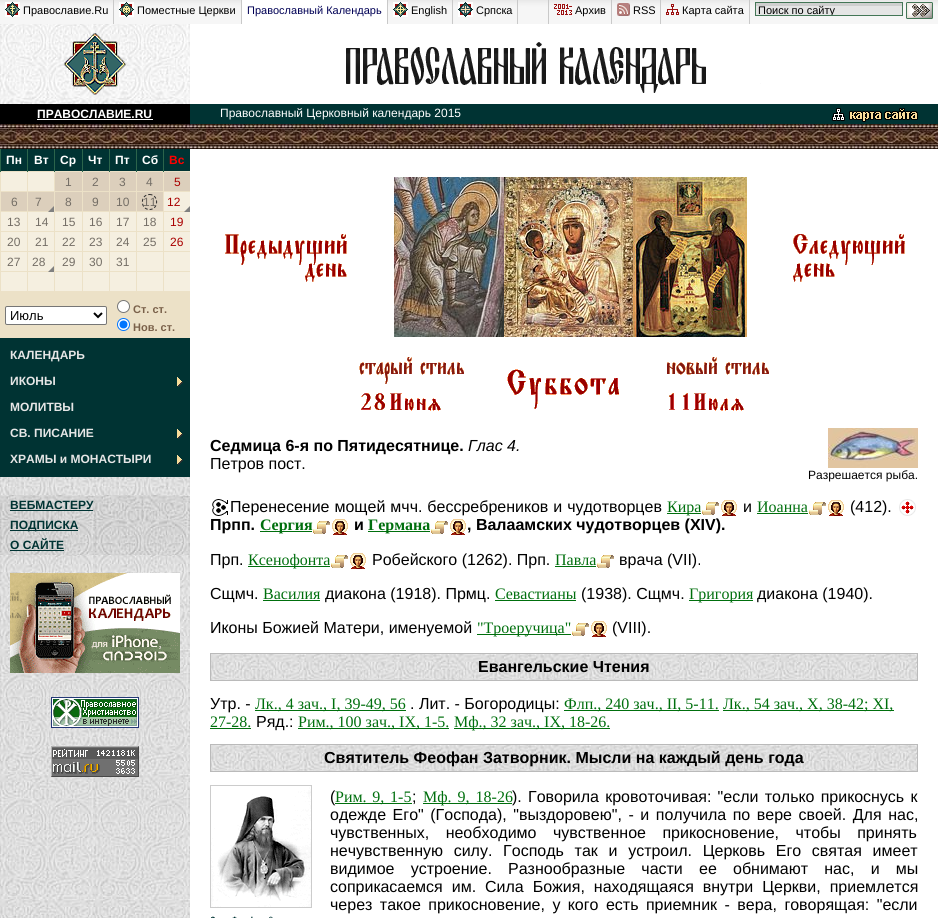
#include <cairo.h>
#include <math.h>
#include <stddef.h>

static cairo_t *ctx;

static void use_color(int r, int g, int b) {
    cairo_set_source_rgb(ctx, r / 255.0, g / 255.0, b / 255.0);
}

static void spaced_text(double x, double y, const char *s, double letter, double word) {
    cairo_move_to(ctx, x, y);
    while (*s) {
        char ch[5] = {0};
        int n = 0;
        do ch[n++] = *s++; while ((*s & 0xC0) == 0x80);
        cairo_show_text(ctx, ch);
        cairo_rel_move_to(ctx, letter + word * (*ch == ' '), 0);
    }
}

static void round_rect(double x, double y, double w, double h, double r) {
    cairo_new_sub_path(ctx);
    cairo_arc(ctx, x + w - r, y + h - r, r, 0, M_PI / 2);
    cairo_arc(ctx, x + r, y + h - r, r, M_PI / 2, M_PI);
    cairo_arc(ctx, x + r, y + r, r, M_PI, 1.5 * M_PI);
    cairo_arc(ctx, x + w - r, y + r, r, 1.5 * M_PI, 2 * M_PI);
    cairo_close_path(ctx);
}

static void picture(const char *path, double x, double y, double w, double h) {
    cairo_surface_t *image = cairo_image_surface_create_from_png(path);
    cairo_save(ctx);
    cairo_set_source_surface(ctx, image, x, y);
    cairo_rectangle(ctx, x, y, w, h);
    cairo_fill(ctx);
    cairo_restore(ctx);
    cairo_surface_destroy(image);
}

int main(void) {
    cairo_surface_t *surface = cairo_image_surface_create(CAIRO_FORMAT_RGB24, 938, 918);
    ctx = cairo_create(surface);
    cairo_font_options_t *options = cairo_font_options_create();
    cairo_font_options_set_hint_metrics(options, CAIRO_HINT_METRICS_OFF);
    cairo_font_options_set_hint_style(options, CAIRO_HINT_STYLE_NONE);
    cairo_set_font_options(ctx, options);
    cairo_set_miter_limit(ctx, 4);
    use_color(255, 255, 255);
    cairo_paint(ctx);
    picture("img1.png", 0, 24, 190, 80);
    picture("img2.png", 0, 0, 938, 24);
    use_color(201, 201, 201);
    cairo_rectangle(ctx, 113, 0, 1, 24);
    cairo_fill(ctx);
    picture("img3.png", 5, 2, 15, 15);
    cairo_select_font_face(ctx, "Liberation Sans", CAIRO_FONT_SLANT_NORMAL, CAIRO_FONT_WEIGHT_NORMAL);
    cairo_set_font_size(ctx, 11);
    use_color(0, 0, 0);
    cairo_move_to(ctx, 23, 14);
    cairo_show_text(ctx, "Православие.Ru");
    use_color(201, 201, 201);
    cairo_rectangle(ctx, 241, 0, 1, 24);
    cairo_fill(ctx);
    picture("img4.png", 119, 2, 15, 15);
    use_color(0, 0, 0);
    cairo_move_to(ctx, 137, 14);
    cairo_show_text(ctx, "Поместные Церкви");
    use_color(255, 255, 255);
    cairo_rectangle(ctx, 242, 0, 145, 24);
    cairo_fill(ctx);
    use_color(201, 201, 201);
    cairo_new_path(ctx);
    cairo_move_to(ctx, 388, -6);
    cairo_line_to(ctx, 388, 24);
    cairo_line_to(ctx, 387, 24);
    cairo_line_to(ctx, 387, -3);
    cairo_close_path(ctx);
    cairo_fill(ctx);
    use_color(0, 0, 85);
    cairo_move_to(ctx, 247, 14);
    cairo_show_text(ctx, "Православный Календарь");
    use_color(201, 201, 201);
    cairo_rectangle(ctx, 452, 0, 1, 24);
    cairo_fill(ctx);
    picture("img5.png", 393, 2, 15, 15);
    use_color(0, 0, 0);
    cairo_move_to(ctx, 411, 14);
    cairo_show_text(ctx, "English");
    use_color(201, 201, 201);
    cairo_rectangle(ctx, 517, 0, 1, 24);
    cairo_fill(ctx);
    picture("img6.png", 458, 2, 15, 15);
    use_color(0, 0, 0);
    cairo_move_to(ctx, 476, 14);
    cairo_show_text(ctx, "Српска");
    use_color(201, 201, 201);
    cairo_rectangle(ctx, 548, 0, 1, 24);
    cairo_fill(ctx);
    picture("img7.png", 554, 4, 18, 11);
    use_color(0, 0, 0);
    cairo_move_to(ctx, 575, 14);
    cairo_show_text(ctx, "Архив");
    use_color(201, 201, 201);
    cairo_rectangle(ctx, 611, 0, 1, 24);
    cairo_fill(ctx);
    picture("img8.png", 617, 3, 13, 13);
    use_color(0, 0, 0);
    cairo_move_to(ctx, 633, 14);
    cairo_show_text(ctx, "RSS");
    use_color(201, 201, 201);
    cairo_rectangle(ctx, 660, 0, 1, 24);
    cairo_fill(ctx);
    picture("img9.png", 666, 4, 13, 11);
    use_color(0, 0, 0);
    cairo_move_to(ctx, 682, 14);
    cairo_show_text(ctx, "Карта сайта");
    use_color(201, 201, 201);
    cairo_rectangle(ctx, 749, 0, 1, 24);
    cairo_fill(ctx);
    use_color(229, 229, 229);
    cairo_rectangle(ctx, 756, 6, 146, 9);
    cairo_fill(ctx);
    use_color(207, 207, 207);
    cairo_rectangle(ctx, 755, 3, 148, 3);
    cairo_fill(ctx);
    cairo_rectangle(ctx, 755.5, 2.5, 147, 13);
    use_color(67, 118, 86);
    cairo_set_line_width(ctx, 1);
    cairo_stroke(ctx);
    cairo_save(ctx);
    cairo_rectangle(ctx, 758, 4, 142, 11);
    cairo_clip(ctx);
    use_color(0, 0, 0);
    cairo_move_to(ctx, 758, 14);
    cairo_show_text(ctx, "Поиск по сайту");
    cairo_restore(ctx);
    picture("img10.png", 906, 2, 27, 17);
    picture("img11.png", 64, 33, 62, 62);
    picture("img12.png", 346, 42, 415, 51);
    use_color(0, 0, 0);
    cairo_rectangle(ctx, 0, 104, 190, 20);
    cairo_fill(ctx);
    cairo_select_font_face(ctx, "Liberation Sans", CAIRO_FONT_SLANT_NORMAL, CAIRO_FONT_WEIGHT_BOLD);
    cairo_set_font_size(ctx, 12);
    use_color(255, 255, 255);
    cairo_move_to(ctx, 37, 118);
    cairo_show_text(ctx, "ПРАВОСЛАВИЕ.RU");
    cairo_rectangle(ctx, 37, 119, 116, 1);
    cairo_fill(ctx);
    use_color(0, 51, 51);
    cairo_rectangle(ctx, 190, 104, 748, 20);
    cairo_fill(ctx);
    cairo_select_font_face(ctx, "Liberation Sans", CAIRO_FONT_SLANT_NORMAL, CAIRO_FONT_WEIGHT_NORMAL);
    use_color(255, 255, 255);
    cairo_move_to(ctx, 220, 117);
    cairo_show_text(ctx, "Православный Церковный календарь 2015");
    picture("img13.png", 832, 108, 86, 14);
    picture("img14.png", 0, 124, 938, 25);
    picture("img15.png", 0, 477, 190, 441);
    use_color(0, 51, 51);
    cairo_rectangle(ctx, 0, 149, 190, 328);
    cairo_fill(ctx);
    use_color(236, 225, 199);
    cairo_rectangle(ctx, 0, 171, 190, 1);
    cairo_fill(ctx);
    use_color(43, 100, 75);
    cairo_rectangle(ctx, 0, 149, 1, 23);
    cairo_fill(ctx);
    cairo_select_font_face(ctx, "Liberation Sans", CAIRO_FONT_SLANT_NORMAL, CAIRO_FONT_WEIGHT_BOLD);
    use_color(255, 255, 255);
    cairo_move_to(ctx, 6, 164);
    cairo_show_text(ctx, "Пн");
    use_color(43, 100, 75);
    cairo_rectangle(ctx, 27, 149, 1, 23);
    cairo_fill(ctx);
    use_color(255, 255, 255);
    cairo_move_to(ctx, 34, 164);
    cairo_show_text(ctx, "Вт");
    use_color(43, 100, 75);
    cairo_rectangle(ctx, 54, 149, 1, 23);
    cairo_fill(ctx);
    use_color(255, 255, 255);
    cairo_move_to(ctx, 60, 164);
    cairo_show_text(ctx, "Ср");
    use_color(43, 100, 75);
    cairo_rectangle(ctx, 82, 149, 1, 23);
    cairo_fill(ctx);
    use_color(255, 255, 255);
    cairo_move_to(ctx, 88, 164);
    cairo_show_text(ctx, "Чт");
    use_color(43, 100, 75);
    cairo_rectangle(ctx, 109, 149, 1, 23);
    cairo_fill(ctx);
    use_color(255, 255, 255);
    cairo_move_to(ctx, 115, 164);
    cairo_show_text(ctx, "Пт");
    use_color(43, 100, 75);
    cairo_rectangle(ctx, 136, 149, 1, 23);
    cairo_fill(ctx);
    use_color(255, 255, 255);
    cairo_move_to(ctx, 142, 164);
    cairo_show_text(ctx, "Сб");
    use_color(43, 100, 75);
    cairo_rectangle(ctx, 163, 149, 1, 23);
    cairo_fill(ctx);
    use_color(255, 0, 0);
    cairo_move_to(ctx, 169, 164);
    cairo_show_text(ctx, "Вс");
    use_color(245, 239, 224);
    cairo_rectangle(ctx, 1, 172, 26, 19);
    cairo_fill(ctx);
    use_color(236, 225, 199);
    cairo_rectangle(ctx, 0, 191, 190, 1);
    cairo_fill(ctx);
    cairo_rectangle(ctx, 0, 172, 1, 20);
    cairo_fill(ctx);
    use_color(245, 239, 224);
    cairo_rectangle(ctx, 28, 172, 26, 19);
    cairo_fill(ctx);
    use_color(236, 225, 199);
    cairo_rectangle(ctx, 27, 172, 1, 20);
    cairo_fill(ctx);
    use_color(220, 207, 188);
    cairo_rectangle(ctx, 55, 172, 27, 19);
    cairo_fill(ctx);
    use_color(236, 225, 199);
    cairo_rectangle(ctx, 54, 172, 1, 20);
    cairo_fill(ctx);
    cairo_select_font_face(ctx, "Liberation Sans", CAIRO_FONT_SLANT_NORMAL, CAIRO_FONT_WEIGHT_NORMAL);
    use_color(116, 110, 102);
    cairo_move_to(ctx, 65, 186);
    cairo_show_text(ctx, "1");
    use_color(220, 207, 188);
    cairo_rectangle(ctx, 83, 172, 26, 19);
    cairo_fill(ctx);
    use_color(236, 225, 199);
    cairo_rectangle(ctx, 82, 172, 1, 20);
    cairo_fill(ctx);
    use_color(116, 110, 102);
    cairo_move_to(ctx, 92, 186);
    cairo_show_text(ctx, "2");
    use_color(220, 207, 188);
    cairo_rectangle(ctx, 110, 172, 26, 19);
    cairo_fill(ctx);
    use_color(236, 225, 199);
    cairo_rectangle(ctx, 109, 172, 1, 20);
    cairo_fill(ctx);
    use_color(116, 110, 102);
    cairo_move_to(ctx, 119, 186);
    cairo_show_text(ctx, "3");
    use_color(220, 207, 188);
    cairo_rectangle(ctx, 137, 172, 26, 19);
    cairo_fill(ctx);
    use_color(236, 225, 199);
    cairo_rectangle(ctx, 136, 172, 1, 20);
    cairo_fill(ctx);
    use_color(116, 110, 102);
    cairo_move_to(ctx, 146, 186);
    cairo_show_text(ctx, "4");
    use_color(220, 207, 188);
    cairo_rectangle(ctx, 164, 172, 26, 19);
    cairo_fill(ctx);
    use_color(236, 225, 199);
    cairo_rectangle(ctx, 163, 172, 1, 20);
    cairo_fill(ctx);
    use_color(169, 0, 0);
    cairo_move_to(ctx, 174, 186);
    cairo_show_text(ctx, "5");
    use_color(220, 207, 188);
    cairo_rectangle(ctx, 1, 192, 26, 19);
    cairo_fill(ctx);
    use_color(236, 225, 199);
    cairo_rectangle(ctx, 0, 211, 190, 1);
    cairo_fill(ctx);
    cairo_rectangle(ctx, 0, 192, 1, 20);
    cairo_fill(ctx);
    use_color(116, 110, 102);
    cairo_move_to(ctx, 11, 206);
    cairo_show_text(ctx, "6");
    use_color(220, 207, 188);
    cairo_rectangle(ctx, 28, 192, 26, 19);
    cairo_fill(ctx);
    use_color(236, 225, 199);
    cairo_rectangle(ctx, 27, 192, 1, 20);
    cairo_fill(ctx);
    use_color(116, 110, 102);
    cairo_move_to(ctx, 35, 206);
    cairo_show_text(ctx, "7");
    use_color(128, 128, 128);
    cairo_new_path(ctx);
    cairo_move_to(ctx, 54, 212);
    cairo_line_to(ctx, 48, 212);
    cairo_line_to(ctx, 54, 206);
    cairo_close_path(ctx);
    cairo_fill(ctx);
    use_color(220, 207, 188);
    cairo_rectangle(ctx, 55, 192, 27, 19);
    cairo_fill(ctx);
    use_color(236, 225, 199);
    cairo_rectangle(ctx, 54, 192, 1, 20);
    cairo_fill(ctx);
    use_color(116, 110, 102);
    cairo_move_to(ctx, 65, 206);
    cairo_show_text(ctx, "8");
    use_color(220, 207, 188);
    cairo_rectangle(ctx, 83, 192, 26, 19);
    cairo_fill(ctx);
    use_color(236, 225, 199);
    cairo_rectangle(ctx, 82, 192, 1, 20);
    cairo_fill(ctx);
    use_color(116, 110, 102);
    cairo_move_to(ctx, 92, 206);
    cairo_show_text(ctx, "9");
    use_color(220, 207, 188);
    cairo_rectangle(ctx, 110, 192, 26, 19);
    cairo_fill(ctx);
    use_color(236, 225, 199);
    cairo_rectangle(ctx, 109, 192, 1, 20);
    cairo_fill(ctx);
    use_color(116, 110, 102);
    cairo_move_to(ctx, 116, 206);
    cairo_show_text(ctx, "10");
    use_color(220, 207, 188);
    cairo_rectangle(ctx, 137, 192, 26, 19);
    cairo_fill(ctx);
    use_color(236, 225, 199);
    cairo_rectangle(ctx, 136, 192, 1, 20);
    cairo_fill(ctx);
    cairo_new_path(ctx);
    cairo_move_to(ctx, 149.5, 194.5);
    cairo_curve_to(ctx, 159, 194.5, 159, 209.5, 149.5, 209.5);
    cairo_curve_to(ctx, 140, 209.5, 140, 194.5, 149.5, 194.5);
    cairo_close_path(ctx);
    use_color(45, 45, 45);
    cairo_set_dash(ctx, (double[]){3, 2}, 2, 0);
    cairo_stroke(ctx);
    use_color(116, 110, 102);
    cairo_move_to(ctx, 143, 206);
    cairo_show_text(ctx, "11");
    use_color(245, 239, 224);
    cairo_rectangle(ctx, 164, 192, 26, 19);
    cairo_fill(ctx);
    use_color(236, 225, 199);
    cairo_rectangle(ctx, 163, 192, 1, 20);
    cairo_fill(ctx);
    use_color(169, 0, 0);
    cairo_move_to(ctx, 167, 206);
    cairo_show_text(ctx, "12");
    use_color(128, 128, 128);
    cairo_new_path(ctx);
    cairo_move_to(ctx, 190, 212);
    cairo_line_to(ctx, 184, 212);
    cairo_line_to(ctx, 190, 206);
    cairo_close_path(ctx);
    cairo_fill(ctx);
    use_color(245, 239, 224);
    cairo_rectangle(ctx, 1, 212, 26, 19);
    cairo_fill(ctx);
    use_color(236, 225, 199);
    cairo_rectangle(ctx, 0, 231, 190, 1);
    cairo_fill(ctx);
    cairo_rectangle(ctx, 0, 212, 1, 20);
    cairo_fill(ctx);
    use_color(116, 110, 102);
    cairo_move_to(ctx, 7, 226);
    cairo_show_text(ctx, "13");
    use_color(245, 239, 224);
    cairo_rectangle(ctx, 28, 212, 26, 19);
    cairo_fill(ctx);
    use_color(236, 225, 199);
    cairo_rectangle(ctx, 27, 212, 1, 20);
    cairo_fill(ctx);
    use_color(116, 110, 102);
    cairo_move_to(ctx, 35, 226);
    cairo_show_text(ctx, "14");
    use_color(245, 239, 224);
    cairo_rectangle(ctx, 55, 212, 27, 19);
    cairo_fill(ctx);
    use_color(236, 225, 199);
    cairo_rectangle(ctx, 54, 212, 1, 20);
    cairo_fill(ctx);
    use_color(116, 110, 102);
    cairo_move_to(ctx, 62, 226);
    cairo_show_text(ctx, "15");
    use_color(245, 239, 224);
    cairo_rectangle(ctx, 83, 212, 26, 19);
    cairo_fill(ctx);
    use_color(236, 225, 199);
    cairo_rectangle(ctx, 82, 212, 1, 20);
    cairo_fill(ctx);
    use_color(116, 110, 102);
    cairo_move_to(ctx, 89, 226);
    cairo_show_text(ctx, "16");
    use_color(245, 239, 224);
    cairo_rectangle(ctx, 110, 212, 26, 19);
    cairo_fill(ctx);
    use_color(236, 225, 199);
    cairo_rectangle(ctx, 109, 212, 1, 20);
    cairo_fill(ctx);
    use_color(116, 110, 102);
    cairo_move_to(ctx, 116, 226);
    cairo_show_text(ctx, "17");
    use_color(245, 239, 224);
    cairo_rectangle(ctx, 137, 212, 26, 19);
    cairo_fill(ctx);
    use_color(236, 225, 199);
    cairo_rectangle(ctx, 136, 212, 1, 20);
    cairo_fill(ctx);
    use_color(116, 110, 102);
    cairo_move_to(ctx, 143, 226);
    cairo_show_text(ctx, "18");
    use_color(245, 239, 224);
    cairo_rectangle(ctx, 164, 212, 26, 19);
    cairo_fill(ctx);
    use_color(236, 225, 199);
    cairo_rectangle(ctx, 163, 212, 1, 20);
    cairo_fill(ctx);
    use_color(169, 0, 0);
    cairo_move_to(ctx, 170, 226);
    cairo_show_text(ctx, "19");
    use_color(245, 239, 224);
    cairo_rectangle(ctx, 1, 232, 26, 19);
    cairo_fill(ctx);
    use_color(236, 225, 199);
    cairo_rectangle(ctx, 0, 251, 190, 1);
    cairo_fill(ctx);
    cairo_rectangle(ctx, 0, 232, 1, 20);
    cairo_fill(ctx);
    use_color(116, 110, 102);
    cairo_move_to(ctx, 7, 246);
    cairo_show_text(ctx, "20");
    use_color(245, 239, 224);
    cairo_rectangle(ctx, 28, 232, 26, 19);
    cairo_fill(ctx);
    use_color(236, 225, 199);
    cairo_rectangle(ctx, 27, 232, 1, 20);
    cairo_fill(ctx);
    use_color(116, 110, 102);
    cairo_move_to(ctx, 35, 246);
    cairo_show_text(ctx, "21");
    use_color(245, 239, 224);
    cairo_rectangle(ctx, 55, 232, 27, 19);
    cairo_fill(ctx);
    use_color(236, 225, 199);
    cairo_rectangle(ctx, 54, 232, 1, 20);
    cairo_fill(ctx);
    use_color(116, 110, 102);
    cairo_move_to(ctx, 62, 246);
    cairo_show_text(ctx, "22");
    use_color(245, 239, 224);
    cairo_rectangle(ctx, 83, 232, 26, 19);
    cairo_fill(ctx);
    use_color(236, 225, 199);
    cairo_rectangle(ctx, 82, 232, 1, 20);
    cairo_fill(ctx);
    use_color(116, 110, 102);
    cairo_move_to(ctx, 89, 246);
    cairo_show_text(ctx, "23");
    use_color(245, 239, 224);
    cairo_rectangle(ctx, 110, 232, 26, 19);
    cairo_fill(ctx);
    use_color(236, 225, 199);
    cairo_rectangle(ctx, 109, 232, 1, 20);
    cairo_fill(ctx);
    use_color(116, 110, 102);
    cairo_move_to(ctx, 116, 246);
    cairo_show_text(ctx, "24");
    use_color(245, 239, 224);
    cairo_rectangle(ctx, 137, 232, 26, 19);
    cairo_fill(ctx);
    use_color(236, 225, 199);
    cairo_rectangle(ctx, 136, 232, 1, 20);
    cairo_fill(ctx);
    use_color(116, 110, 102);
    cairo_move_to(ctx, 143, 246);
    cairo_show_text(ctx, "25");
    use_color(245, 239, 224);
    cairo_rectangle(ctx, 164, 232, 26, 19);
    cairo_fill(ctx);
    use_color(236, 225, 199);
    cairo_rectangle(ctx, 163, 232, 1, 20);
    cairo_fill(ctx);
    use_color(169, 0, 0);
    cairo_move_to(ctx, 170, 246);
    cairo_show_text(ctx, "26");
    use_color(245, 239, 224);
    cairo_rectangle(ctx, 1, 252, 26, 19);
    cairo_fill(ctx);
    use_color(236, 225, 199);
    cairo_rectangle(ctx, 0, 271, 190, 1);
    cairo_fill(ctx);
    cairo_rectangle(ctx, 0, 252, 1, 20);
    cairo_fill(ctx);
    use_color(116, 110, 102);
    cairo_move_to(ctx, 7, 266);
    cairo_show_text(ctx, "27");
    use_color(245, 239, 224);
    cairo_rectangle(ctx, 28, 252, 26, 19);
    cairo_fill(ctx);
    use_color(236, 225, 199);
    cairo_rectangle(ctx, 27, 252, 1, 20);
    cairo_fill(ctx);
    use_color(116, 110, 102);
    cairo_move_to(ctx, 32, 266);
    cairo_show_text(ctx, "28");
    use_color(128, 128, 128);
    cairo_new_path(ctx);
    cairo_move_to(ctx, 54, 272);
    cairo_line_to(ctx, 48, 272);
    cairo_line_to(ctx, 54, 266);
    cairo_close_path(ctx);
    cairo_fill(ctx);
    use_color(245, 239, 224);
    cairo_rectangle(ctx, 55, 252, 27, 19);
    cairo_fill(ctx);
    use_color(236, 225, 199);
    cairo_rectangle(ctx, 54, 252, 1, 20);
    cairo_fill(ctx);
    use_color(116, 110, 102);
    cairo_move_to(ctx, 62, 266);
    cairo_show_text(ctx, "29");
    use_color(245, 239, 224);
    cairo_rectangle(ctx, 83, 252, 26, 19);
    cairo_fill(ctx);
    use_color(236, 225, 199);
    cairo_rectangle(ctx, 82, 252, 1, 20);
    cairo_fill(ctx);
    use_color(116, 110, 102);
    cairo_move_to(ctx, 89, 266);
    cairo_show_text(ctx, "30");
    use_color(245, 239, 224);
    cairo_rectangle(ctx, 110, 252, 26, 19);
    cairo_fill(ctx);
    use_color(236, 225, 199);
    cairo_rectangle(ctx, 109, 252, 1, 20);
    cairo_fill(ctx);
    use_color(116, 110, 102);
    cairo_move_to(ctx, 116, 266);
    cairo_show_text(ctx, "31");
    use_color(245, 239, 224);
    cairo_rectangle(ctx, 137, 252, 26, 19);
    cairo_fill(ctx);
    use_color(236, 225, 199);
    cairo_rectangle(ctx, 136, 252, 1, 20);
    cairo_fill(ctx);
    use_color(245, 239, 224);
    cairo_rectangle(ctx, 164, 252, 26, 19);
    cairo_fill(ctx);
    use_color(236, 225, 199);
    cairo_rectangle(ctx, 163, 252, 1, 20);
    cairo_fill(ctx);
    use_color(245, 239, 224);
    cairo_rectangle(ctx, 1, 272, 26, 19);
    cairo_fill(ctx);
    use_color(236, 225, 199);
    cairo_rectangle(ctx, 0, 291, 190, 47);
    cairo_fill(ctx);
    cairo_rectangle(ctx, 0, 272, 1, 20);
    cairo_fill(ctx);
    use_color(245, 239, 224);
    cairo_rectangle(ctx, 28, 272, 26, 19);
    cairo_fill(ctx);
    use_color(236, 225, 199);
    cairo_rectangle(ctx, 27, 272, 1, 20);
    cairo_fill(ctx);
    use_color(245, 239, 224);
    cairo_rectangle(ctx, 55, 272, 27, 19);
    cairo_fill(ctx);
    use_color(236, 225, 199);
    cairo_rectangle(ctx, 54, 272, 1, 20);
    cairo_fill(ctx);
    use_color(245, 239, 224);
    cairo_rectangle(ctx, 83, 272, 26, 19);
    cairo_fill(ctx);
    use_color(236, 225, 199);
    cairo_rectangle(ctx, 82, 272, 1, 20);
    cairo_fill(ctx);
    use_color(245, 239, 224);
    cairo_rectangle(ctx, 110, 272, 26, 19);
    cairo_fill(ctx);
    use_color(236, 225, 199);
    cairo_rectangle(ctx, 109, 272, 1, 20);
    cairo_fill(ctx);
    use_color(245, 239, 224);
    cairo_rectangle(ctx, 137, 272, 26, 19);
    cairo_fill(ctx);
    use_color(236, 225, 199);
    cairo_rectangle(ctx, 136, 272, 1, 20);
    cairo_fill(ctx);
    use_color(245, 239, 224);
    cairo_rectangle(ctx, 164, 272, 26, 19);
    cairo_fill(ctx);
    use_color(236, 225, 199);
    cairo_rectangle(ctx, 163, 272, 1, 20);
    cairo_fill(ctx);
    use_color(255, 255, 255);
    round_rect(5.5, 306.5, 101, 18, 1.5);
    cairo_fill_preserve(ctx);
    use_color(118, 118, 118);
    cairo_set_dash(ctx, NULL, 0, 0);
    cairo_stroke(ctx);
    cairo_new_path(ctx);
    cairo_move_to(ctx, 94, 313);
    cairo_line_to(ctx, 98, 317);
    cairo_line_to(ctx, 102, 313);
    use_color(0, 0, 0);
    cairo_set_line_width(ctx, 2);
    cairo_stroke(ctx);
    cairo_set_font_size(ctx, 13);
    cairo_move_to(ctx, 10, 320);
    cairo_show_text(ctx, "Июль");
    use_color(255, 255, 255);
    cairo_new_path(ctx);
    cairo_arc(ctx, 123.5, 306.5, 6, 0, 2 * M_PI);
    cairo_fill_preserve(ctx);
    use_color(118, 118, 118);
    cairo_set_line_width(ctx, 1);
    cairo_stroke(ctx);
    cairo_select_font_face(ctx, "Liberation Sans", CAIRO_FONT_SLANT_NORMAL, CAIRO_FONT_WEIGHT_BOLD);
    cairo_set_font_size(ctx, 11);
    use_color(122, 97, 74);
    cairo_move_to(ctx, 133, 313);
    cairo_show_text(ctx, "Ст. ст.");
    use_color(255, 255, 255);
    cairo_new_path(ctx);
    cairo_arc(ctx, 123.5, 324.5, 6, 0, 2 * M_PI);
    cairo_fill_preserve(ctx);
    use_color(0, 117, 255);
    cairo_stroke(ctx);
    cairo_arc(ctx, 123.5, 324.5, 4, 0, 2 * M_PI);
    cairo_fill(ctx);
    use_color(122, 97, 74);
    cairo_move_to(ctx, 133, 331);
    cairo_show_text(ctx, "Нов. ст.");
    cairo_set_font_size(ctx, 12);
    use_color(230, 230, 230);
    cairo_move_to(ctx, 10, 359);
    cairo_show_text(ctx, "КАЛЕНДАРЬ");
    picture("img16.png", 177, 377, 6, 10);
    cairo_move_to(ctx, 10, 385);
    cairo_show_text(ctx, "ИКОНЫ");
    cairo_move_to(ctx, 10, 411);
    cairo_show_text(ctx, "МОЛИТВЫ");
    picture("img16.png", 177, 429, 6, 10);
    cairo_move_to(ctx, 10, 437);
    cairo_show_text(ctx, "СВ. ПИСАНИЕ");
    picture("img16.png", 177, 455, 6, 10);
    cairo_move_to(ctx, 10, 463);
    cairo_show_text(ctx, "ХРАМЫ и МОНАСТЫРИ");
    picture("img17.png", 0, 495, 190, 60);
    use_color(0, 51, 51);
    cairo_move_to(ctx, 10, 509);
    cairo_show_text(ctx, "ВЕБМАСТЕРУ");
    cairo_rectangle(ctx, 10, 510, 83, 1);
    cairo_fill(ctx);
    cairo_rectangle(ctx, 10, 530, 68, 1);
    cairo_fill(ctx);
    cairo_move_to(ctx, 10, 529);
    cairo_show_text(ctx, "ПОДПИСКА");
    cairo_move_to(ctx, 10, 549);
    cairo_show_text(ctx, "О САЙТЕ");
    cairo_rectangle(ctx, 10, 550, 54, 1);
    cairo_fill(ctx);
    picture("img18.png", 10, 573, 170, 100);
    picture("img19.png", 51, 697, 88, 31);
    picture("img20.png", 51, 746, 88, 31);
    picture("img21.png", 225, 234, 122, 48);
    picture("img22.png", 394, 177, 110, 160);
    picture("img23.png", 504, 177, 129, 160);
    picture("img24.png", 633, 177, 114, 160);
    picture("img25.png", 793, 234, 112, 48);
    picture("img26.png", 359, 357, 105, 27);
    picture("img27.png", 361, 393, 24, 17);
    picture("img28.png", 390, 393, 51, 18);
    picture("img29.png", 507, 369, 112, 40);
    picture("img30.png", 667, 357, 102, 18);
    picture("img31.png", 669, 393, 20, 17);
    picture("img32.png", 694, 393, 50, 18);
    cairo_set_font_size(ctx, 16);
    use_color(0, 0, 0);
    cairo_move_to(ctx, 210, 451);
    cairo_show_text(ctx, "Седмица 6-я по Пятидесятнице.");
    cairo_select_font_face(ctx, "Liberation Sans", CAIRO_FONT_SLANT_ITALIC, CAIRO_FONT_WEIGHT_NORMAL);
    cairo_move_to(ctx, 468, 451);
    cairo_show_text(ctx, "Глас 4.");
    cairo_select_font_face(ctx, "Liberation Sans", CAIRO_FONT_SLANT_NORMAL, CAIRO_FONT_WEIGHT_NORMAL);
    cairo_move_to(ctx, 210, 469);
    cairo_show_text(ctx, "Петров пост.");
    picture("img33.png", 828, 428, 90, 40);
    cairo_set_font_size(ctx, 12);
    cairo_move_to(ctx, 808, 479);
    cairo_show_text(ctx, "Разрешается рыба.");
    picture("img34.png", 212, 499, 16, 17);
    cairo_set_font_size(ctx, 16);
    spaced_text(230, 512, "Перенесение мощей мчч. бессребреников и чудотворцев", 0, 0.5);
    use_color(0, 111, 13);
    cairo_rectangle(ctx, 667, 513, 34, 1);
    cairo_fill(ctx);
    cairo_select_font_face(ctx, "Liberation Serif", CAIRO_FONT_SLANT_NORMAL, CAIRO_FONT_WEIGHT_NORMAL);
    cairo_move_to(ctx, 667, 512);
    cairo_show_text(ctx, "Кира");
    picture("img35.png", 701, 502, 18, 13);
    picture("img36.png", 721, 500, 16, 16);
    cairo_select_font_face(ctx, "Liberation Sans", CAIRO_FONT_SLANT_NORMAL, CAIRO_FONT_WEIGHT_NORMAL);
    use_color(0, 0, 0);
    cairo_move_to(ctx, 743, 512);
    cairo_show_text(ctx, "и");
    cairo_select_font_face(ctx, "Liberation Serif", CAIRO_FONT_SLANT_NORMAL, CAIRO_FONT_WEIGHT_NORMAL);
    use_color(0, 111, 13);
    cairo_move_to(ctx, 757, 512);
    cairo_show_text(ctx, "Иоанна");
    cairo_rectangle(ctx, 757, 513, 51, 1);
    cairo_fill(ctx);
    picture("img37.png", 809, 502, 17, 13);
    picture("img36.png", 828, 500, 16, 16);
    cairo_select_font_face(ctx, "Liberation Sans", CAIRO_FONT_SLANT_NORMAL, CAIRO_FONT_WEIGHT_NORMAL);
    use_color(0, 0, 0);
    cairo_move_to(ctx, 850, 512);
    cairo_show_text(ctx, "(412).");
    picture("img38.png", 899, 499, 17, 17);
    cairo_select_font_face(ctx, "Liberation Sans", CAIRO_FONT_SLANT_NORMAL, CAIRO_FONT_WEIGHT_BOLD);
    cairo_move_to(ctx, 210, 530);
    cairo_show_text(ctx, "Прпп.");
    use_color(0, 111, 13);
    cairo_rectangle(ctx, 260, 531, 52, 1);
    cairo_fill(ctx);
    cairo_select_font_face(ctx, "Liberation Serif", CAIRO_FONT_SLANT_NORMAL, CAIRO_FONT_WEIGHT_BOLD);
    cairo_move_to(ctx, 260, 530);
    cairo_show_text(ctx, "Сергия");
    picture("img37.png", 313, 521, 17, 13);
    picture("img36.png", 332, 519, 16, 16);
    cairo_select_font_face(ctx, "Liberation Sans", CAIRO_FONT_SLANT_NORMAL, CAIRO_FONT_WEIGHT_BOLD);
    use_color(0, 0, 0);
    cairo_move_to(ctx, 354, 530);
    cairo_show_text(ctx, "и");
    use_color(0, 111, 13);
    cairo_rectangle(ctx, 368, 531, 62, 1);
    cairo_fill(ctx);
    cairo_select_font_face(ctx, "Liberation Serif", CAIRO_FONT_SLANT_NORMAL, CAIRO_FONT_WEIGHT_BOLD);
    cairo_move_to(ctx, 368, 530);
    cairo_show_text(ctx, "Германа");
    picture("img37.png", 431, 521, 17, 13);
    picture("img36.png", 450, 519, 16, 16);
    cairo_select_font_face(ctx, "Liberation Sans", CAIRO_FONT_SLANT_NORMAL, CAIRO_FONT_WEIGHT_BOLD);
    use_color(0, 0, 0);
    cairo_move_to(ctx, 467, 530);
    cairo_show_text(ctx, ", Валаамских чудотворцев (XIV).");
    cairo_select_font_face(ctx, "Liberation Sans", CAIRO_FONT_SLANT_NORMAL, CAIRO_FONT_WEIGHT_NORMAL);
    cairo_move_to(ctx, 210, 565);
    cairo_show_text(ctx, "Прп.");
    use_color(0, 111, 13);
    cairo_rectangle(ctx, 248, 566, 82, 1);
    cairo_fill(ctx);
    cairo_select_font_face(ctx, "Liberation Serif", CAIRO_FONT_SLANT_NORMAL, CAIRO_FONT_WEIGHT_NORMAL);
    cairo_move_to(ctx, 248, 565);
    cairo_show_text(ctx, "Ксенофонта");
    picture("img35.png", 330, 555, 18, 13);
    picture("img36.png", 350, 553, 16, 16);
    cairo_select_font_face(ctx, "Liberation Sans", CAIRO_FONT_SLANT_NORMAL, CAIRO_FONT_WEIGHT_NORMAL);
    use_color(0, 0, 0);
    cairo_move_to(ctx, 372, 565);
    cairo_show_text(ctx, "Робейского (1262). Прп.");
    cairo_select_font_face(ctx, "Liberation Serif", CAIRO_FONT_SLANT_NORMAL, CAIRO_FONT_WEIGHT_NORMAL);
    use_color(0, 111, 13);
    cairo_move_to(ctx, 555, 565);
    cairo_show_text(ctx, "Павла");
    cairo_rectangle(ctx, 555, 566, 41, 1);
    cairo_fill(ctx);
    picture("img37.png", 597, 555, 17, 13);
    cairo_select_font_face(ctx, "Liberation Sans", CAIRO_FONT_SLANT_NORMAL, CAIRO_FONT_WEIGHT_NORMAL);
    use_color(0, 0, 0);
    cairo_move_to(ctx, 619, 565);
    cairo_show_text(ctx, "врача (VII).");
    cairo_move_to(ctx, 210, 599);
    cairo_show_text(ctx, "Сщмч.");
    cairo_select_font_face(ctx, "Liberation Serif", CAIRO_FONT_SLANT_NORMAL, CAIRO_FONT_WEIGHT_NORMAL);
    use_color(0, 111, 13);
    cairo_move_to(ctx, 263, 599);
    cairo_show_text(ctx, "Василия");
    cairo_rectangle(ctx, 263, 600, 57, 1);
    cairo_fill(ctx);
    cairo_select_font_face(ctx, "Liberation Sans", CAIRO_FONT_SLANT_NORMAL, CAIRO_FONT_WEIGHT_NORMAL);
    use_color(0, 0, 0);
    cairo_move_to(ctx, 325, 599);
    cairo_show_text(ctx, "диакона (1918). Прмц.");
    cairo_select_font_face(ctx, "Liberation Serif", CAIRO_FONT_SLANT_NORMAL, CAIRO_FONT_WEIGHT_NORMAL);
    use_color(0, 111, 13);
    cairo_move_to(ctx, 495, 599);
    cairo_show_text(ctx, "Севастианы");
    cairo_rectangle(ctx, 495, 600, 81, 1);
    cairo_fill(ctx);
    cairo_select_font_face(ctx, "Liberation Sans", CAIRO_FONT_SLANT_NORMAL, CAIRO_FONT_WEIGHT_NORMAL);
    use_color(0, 0, 0);
    cairo_move_to(ctx, 581, 599);
    cairo_show_text(ctx, "(1938). Сщмч.");
    use_color(0, 111, 13);
    cairo_rectangle(ctx, 689, 600, 64, 1);
    cairo_fill(ctx);
    cairo_select_font_face(ctx, "Liberation Serif", CAIRO_FONT_SLANT_NORMAL, CAIRO_FONT_WEIGHT_NORMAL);
    cairo_move_to(ctx, 689, 599);
    cairo_show_text(ctx, "Григория");
    cairo_select_font_face(ctx, "Liberation Sans", CAIRO_FONT_SLANT_NORMAL, CAIRO_FONT_WEIGHT_NORMAL);
    use_color(0, 0, 0);
    cairo_move_to(ctx, 757, 599);
    cairo_show_text(ctx, "диакона (1940).");
    cairo_move_to(ctx, 210, 633);
    cairo_show_text(ctx, "Иконы Божией Матери, именуемой");
    use_color(0, 111, 13);
    cairo_rectangle(ctx, 477, 634, 94, 1);
    cairo_fill(ctx);
    cairo_select_font_face(ctx, "Liberation Serif", CAIRO_FONT_SLANT_NORMAL, CAIRO_FONT_WEIGHT_NORMAL);
    cairo_move_to(ctx, 477, 633);
    cairo_show_text(ctx, "\"Троеручица\"");
    picture("img37.png", 572, 623, 17, 13);
    picture("img36.png", 591, 621, 16, 16);
    cairo_select_font_face(ctx, "Liberation Sans", CAIRO_FONT_SLANT_NORMAL, CAIRO_FONT_WEIGHT_NORMAL);
    use_color(0, 0, 0);
    cairo_move_to(ctx, 612, 633);
    cairo_show_text(ctx, "(VIII).");
    picture("img39.png", 211, 654, 706, 26);
    cairo_rectangle(ctx, 210.5, 653.5, 707, 27);
    use_color(186, 186, 186);
    cairo_stroke(ctx);
    cairo_select_font_face(ctx, "Liberation Sans", CAIRO_FONT_SLANT_NORMAL, CAIRO_FONT_WEIGHT_BOLD);
    use_color(0, 0, 0);
    cairo_move_to(ctx, 478, 672);
    cairo_show_text(ctx, "Евангельские Чтения");
    cairo_select_font_face(ctx, "Liberation Sans", CAIRO_FONT_SLANT_NORMAL, CAIRO_FONT_WEIGHT_NORMAL);
    cairo_move_to(ctx, 210, 709);
    cairo_show_text(ctx, "Утр. -");
    use_color(0, 111, 13);
    cairo_rectangle(ctx, 255, 710, 151, 1);
    cairo_fill(ctx);
    cairo_select_font_face(ctx, "Liberation Serif", CAIRO_FONT_SLANT_NORMAL, CAIRO_FONT_WEIGHT_NORMAL);
    cairo_move_to(ctx, 255, 709);
    cairo_show_text(ctx, "Лк., 4 зач., I, 39-49, 56");
    cairo_select_font_face(ctx, "Liberation Sans", CAIRO_FONT_SLANT_NORMAL, CAIRO_FONT_WEIGHT_NORMAL);
    use_color(0, 0, 0);
    cairo_move_to(ctx, 410, 709);
    cairo_show_text(ctx, ". Лит. - Богородицы:");
    use_color(0, 111, 13);
    cairo_rectangle(ctx, 564, 710, 155, 1);
    cairo_fill(ctx);
    cairo_select_font_face(ctx, "Liberation Serif", CAIRO_FONT_SLANT_NORMAL, CAIRO_FONT_WEIGHT_NORMAL);
    cairo_move_to(ctx, 564, 709);
    cairo_show_text(ctx, "Флп., 240 зач., II, 5-11.");
    cairo_rectangle(ctx, 723, 710, 171, 1);
    cairo_fill(ctx);
    cairo_move_to(ctx, 723, 709);
    cairo_show_text(ctx, "Лк., 54 зач., X, 38-42; XI,");
    cairo_move_to(ctx, 210, 727);
    cairo_show_text(ctx, "27-28.");
    cairo_rectangle(ctx, 210, 728, 41, 1);
    cairo_fill(ctx);
    cairo_select_font_face(ctx, "Liberation Sans", CAIRO_FONT_SLANT_NORMAL, CAIRO_FONT_WEIGHT_NORMAL);
    use_color(0, 0, 0);
    cairo_move_to(ctx, 256, 727);
    cairo_show_text(ctx, "Ряд.:");
    use_color(0, 111, 13);
    cairo_rectangle(ctx, 298, 728, 151, 1);
    cairo_fill(ctx);
    cairo_select_font_face(ctx, "Liberation Serif", CAIRO_FONT_SLANT_NORMAL, CAIRO_FONT_WEIGHT_NORMAL);
    cairo_move_to(ctx, 298, 727);
    cairo_show_text(ctx, "Рим., 100 зач., IX, 1-5.");
    cairo_rectangle(ctx, 454, 728, 156, 1);
    cairo_fill(ctx);
    cairo_move_to(ctx, 454, 727);
    cairo_show_text(ctx, "Мф., 32 зач., IX, 18-26.");
    picture("img39.png", 211, 745, 706, 26);
    cairo_rectangle(ctx, 210.5, 744.5, 707, 27);
    use_color(186, 186, 186);
    cairo_stroke(ctx);
    cairo_select_font_face(ctx, "Liberation Sans", CAIRO_FONT_SLANT_NORMAL, CAIRO_FONT_WEIGHT_BOLD);
    use_color(0, 0, 0);
    cairo_move_to(ctx, 324, 763);
    cairo_show_text(ctx, "Святитель Феофан Затворник. Мысли на каждый день года");
    picture("img40.png", 210, 785, 102, 133);
    cairo_select_font_face(ctx, "Liberation Sans", CAIRO_FONT_SLANT_NORMAL, CAIRO_FONT_WEIGHT_NORMAL);
    cairo_move_to(ctx, 330, 802);
    cairo_show_text(ctx, "(");
    use_color(0, 111, 13);
    cairo_rectangle(ctx, 335, 803, 77, 1);
    cairo_fill(ctx);
    cairo_select_font_face(ctx, "Liberation Serif", CAIRO_FONT_SLANT_NORMAL, CAIRO_FONT_WEIGHT_NORMAL);
    spaced_text(335, 802, "Рим. 9, 1-5", 0, 1.75);
    cairo_select_font_face(ctx, "Liberation Sans", CAIRO_FONT_SLANT_NORMAL, CAIRO_FONT_WEIGHT_NORMAL);
    use_color(0, 0, 0);
    cairo_move_to(ctx, 412, 802);
    cairo_show_text(ctx, ";");
    use_color(0, 111, 13);
    cairo_rectangle(ctx, 423, 803, 89, 1);
    cairo_fill(ctx);
    cairo_select_font_face(ctx, "Liberation Serif", CAIRO_FONT_SLANT_NORMAL, CAIRO_FONT_WEIGHT_NORMAL);
    spaced_text(423, 802, "Мф. 9, 18-26", 0, 2);
    cairo_select_font_face(ctx, "Liberation Sans", CAIRO_FONT_SLANT_NORMAL, CAIRO_FONT_WEIGHT_NORMAL);
    use_color(0, 0, 0);
    spaced_text(512, 802, "). Говорила кровоточивая: \"если только прикоснусь к", 0, 1.75);
    spaced_text(330, 820, "одежде Его\" (Господа), \"выздоровею\", - и получила по вере своей. Для нас,", 0, 2.1);
    spaced_text(330, 838, "чувственных, необходимо чувственное прикосновение, чтобы принять", 0, 12);
    spaced_text(330, 856, "нечувственную силу. Господь так и устроил. Церковь Его святая имеет", 0, 6.25);
    spaced_text(330, 874, "видимое устроение. Разнообразные части ее обнимают нас, и мы", 0, 11.75);
    spaced_text(330, 892, "соприкасаемся им. Сила Божия, находящаяся внутри Церкви, приемлется", 0, 4.5);
    spaced_text(330, 910, "через такое прикосновение, у кого есть приемник - вера, говорящая: \"если", 0, 3);
    cairo_surface_write_to_png(surface, "result.png");
    cairo_font_options_destroy(options);
    cairo_destroy(ctx);
    cairo_surface_destroy(surface);
    return 0;
}
